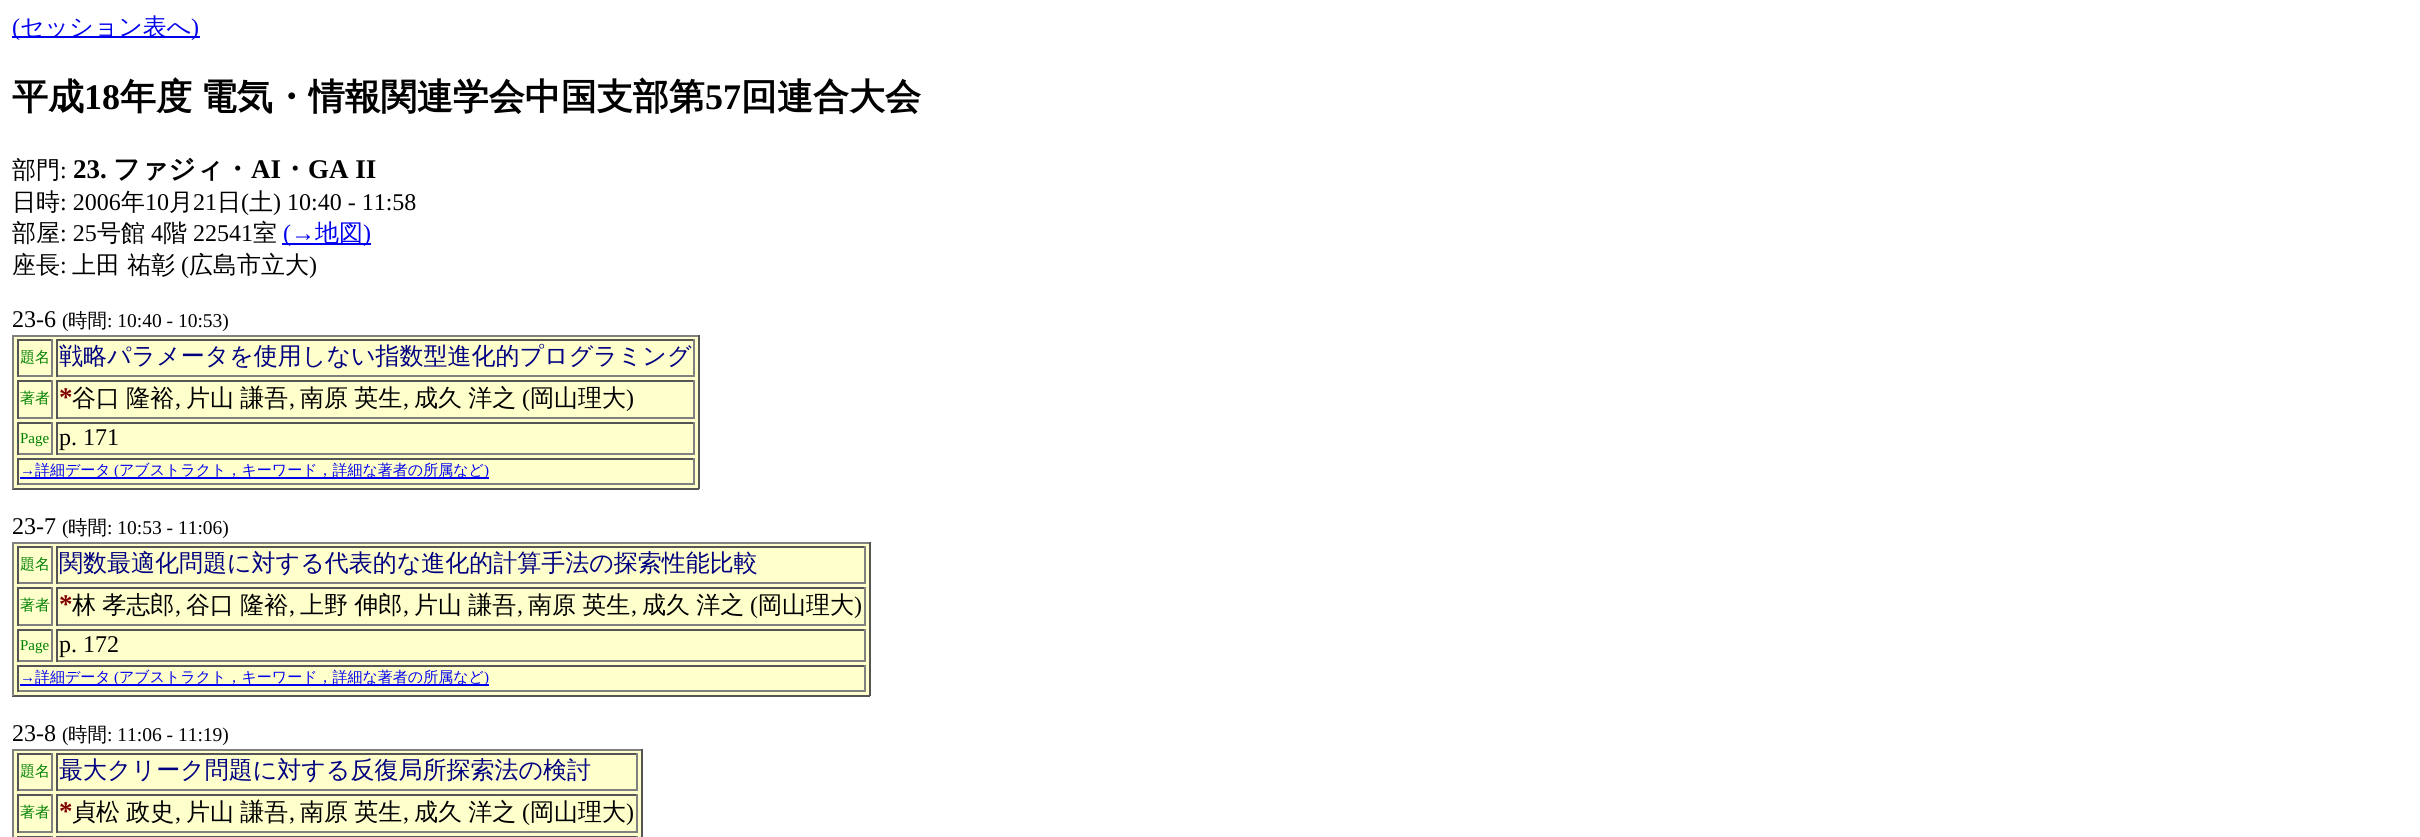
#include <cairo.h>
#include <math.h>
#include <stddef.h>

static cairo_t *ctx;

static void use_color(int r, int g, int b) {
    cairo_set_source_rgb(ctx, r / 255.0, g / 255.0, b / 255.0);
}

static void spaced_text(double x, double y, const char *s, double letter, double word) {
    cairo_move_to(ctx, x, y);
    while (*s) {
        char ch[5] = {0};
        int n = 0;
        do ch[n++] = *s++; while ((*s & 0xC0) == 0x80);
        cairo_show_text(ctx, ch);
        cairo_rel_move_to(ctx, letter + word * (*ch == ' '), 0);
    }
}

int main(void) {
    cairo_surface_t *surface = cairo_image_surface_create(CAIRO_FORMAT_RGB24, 2420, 837);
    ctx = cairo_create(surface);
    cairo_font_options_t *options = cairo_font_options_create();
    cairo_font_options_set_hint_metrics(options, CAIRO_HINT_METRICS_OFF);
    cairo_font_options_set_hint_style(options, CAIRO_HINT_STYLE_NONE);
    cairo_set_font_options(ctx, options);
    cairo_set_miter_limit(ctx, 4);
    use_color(255, 255, 255);
    cairo_paint(ctx);
    use_color(0, 0, 238);
    cairo_rectangle(ctx, 12, 36, 188, 2);
    cairo_fill(ctx);
    cairo_select_font_face(ctx, "Liberation Serif", CAIRO_FONT_SLANT_NORMAL, CAIRO_FONT_WEIGHT_NORMAL);
    cairo_set_font_size(ctx, 24);
    cairo_move_to(ctx, 12, 35);
    cairo_show_text(ctx, "(");
    cairo_select_font_face(ctx, "WenQuanYi Zen Hei Medium", CAIRO_FONT_SLANT_NORMAL, CAIRO_FONT_WEIGHT_NORMAL);
    cairo_move_to(ctx, 20, 35);
    cairo_show_text(ctx, "セッション表へ");
    cairo_select_font_face(ctx, "Liberation Serif", CAIRO_FONT_SLANT_NORMAL, CAIRO_FONT_WEIGHT_NORMAL);
    cairo_move_to(ctx, 191, 35);
    cairo_show_text(ctx, ")");
    cairo_select_font_face(ctx, "WenQuanYi Zen Hei", CAIRO_FONT_SLANT_NORMAL, CAIRO_FONT_WEIGHT_BOLD);
    cairo_set_font_size(ctx, 36);
    use_color(0, 0, 0);
    cairo_move_to(ctx, 12, 109);
    cairo_show_text(ctx, "平成");
    cairo_select_font_face(ctx, "Liberation Serif", CAIRO_FONT_SLANT_NORMAL, CAIRO_FONT_WEIGHT_BOLD);
    cairo_move_to(ctx, 84, 109);
    cairo_show_text(ctx, "18");
    cairo_select_font_face(ctx, "WenQuanYi Zen Hei", CAIRO_FONT_SLANT_NORMAL, CAIRO_FONT_WEIGHT_BOLD);
    spaced_text(120, 109, "年度 電気・情報関連学会中国支部第", 0, -2);
    cairo_select_font_face(ctx, "Liberation Serif", CAIRO_FONT_SLANT_NORMAL, CAIRO_FONT_WEIGHT_BOLD);
    cairo_move_to(ctx, 705, 109);
    cairo_show_text(ctx, "57");
    cairo_select_font_face(ctx, "WenQuanYi Zen Hei", CAIRO_FONT_SLANT_NORMAL, CAIRO_FONT_WEIGHT_BOLD);
    cairo_move_to(ctx, 741, 109);
    cairo_show_text(ctx, "回連合大会");
    cairo_select_font_face(ctx, "WenQuanYi Zen Hei Medium", CAIRO_FONT_SLANT_NORMAL, CAIRO_FONT_WEIGHT_NORMAL);
    cairo_set_font_size(ctx, 24);
    cairo_move_to(ctx, 12, 178);
    cairo_show_text(ctx, "部門");
    cairo_select_font_face(ctx, "Liberation Serif", CAIRO_FONT_SLANT_NORMAL, CAIRO_FONT_WEIGHT_NORMAL);
    cairo_move_to(ctx, 60, 178);
    cairo_show_text(ctx, ":");
    cairo_select_font_face(ctx, "Liberation Serif", CAIRO_FONT_SLANT_NORMAL, CAIRO_FONT_WEIGHT_BOLD);
    cairo_set_font_size(ctx, 27);
    cairo_move_to(ctx, 73, 178);
    cairo_show_text(ctx, "23.");
    cairo_select_font_face(ctx, "WenQuanYi Zen Hei", CAIRO_FONT_SLANT_NORMAL, CAIRO_FONT_WEIGHT_BOLD);
    cairo_move_to(ctx, 113, 178);
    cairo_show_text(ctx, "ファジィ・");
    cairo_select_font_face(ctx, "Liberation Serif", CAIRO_FONT_SLANT_NORMAL, CAIRO_FONT_WEIGHT_BOLD);
    cairo_move_to(ctx, 251, 178);
    cairo_show_text(ctx, "AI");
    cairo_select_font_face(ctx, "WenQuanYi Zen Hei", CAIRO_FONT_SLANT_NORMAL, CAIRO_FONT_WEIGHT_BOLD);
    cairo_move_to(ctx, 281, 178);
    cairo_show_text(ctx, "・");
    cairo_select_font_face(ctx, "Liberation Serif", CAIRO_FONT_SLANT_NORMAL, CAIRO_FONT_WEIGHT_BOLD);
    cairo_move_to(ctx, 308, 178);
    cairo_show_text(ctx, "GA II");
    cairo_select_font_face(ctx, "WenQuanYi Zen Hei Medium", CAIRO_FONT_SLANT_NORMAL, CAIRO_FONT_WEIGHT_NORMAL);
    cairo_set_font_size(ctx, 24);
    cairo_move_to(ctx, 12, 210);
    cairo_show_text(ctx, "日時");
    cairo_select_font_face(ctx, "Liberation Serif", CAIRO_FONT_SLANT_NORMAL, CAIRO_FONT_WEIGHT_NORMAL);
    cairo_move_to(ctx, 60, 210);
    cairo_show_text(ctx, ": 2006");
    cairo_select_font_face(ctx, "WenQuanYi Zen Hei Medium", CAIRO_FONT_SLANT_NORMAL, CAIRO_FONT_WEIGHT_NORMAL);
    cairo_move_to(ctx, 121, 210);
    cairo_show_text(ctx, "年");
    cairo_select_font_face(ctx, "Liberation Serif", CAIRO_FONT_SLANT_NORMAL, CAIRO_FONT_WEIGHT_NORMAL);
    cairo_move_to(ctx, 145, 210);
    cairo_show_text(ctx, "10");
    cairo_select_font_face(ctx, "WenQuanYi Zen Hei Medium", CAIRO_FONT_SLANT_NORMAL, CAIRO_FONT_WEIGHT_NORMAL);
    cairo_move_to(ctx, 169, 210);
    cairo_show_text(ctx, "月");
    cairo_select_font_face(ctx, "Liberation Serif", CAIRO_FONT_SLANT_NORMAL, CAIRO_FONT_WEIGHT_NORMAL);
    cairo_move_to(ctx, 193, 210);
    cairo_show_text(ctx, "21");
    cairo_select_font_face(ctx, "WenQuanYi Zen Hei Medium", CAIRO_FONT_SLANT_NORMAL, CAIRO_FONT_WEIGHT_NORMAL);
    cairo_move_to(ctx, 217, 210);
    cairo_show_text(ctx, "日");
    cairo_select_font_face(ctx, "Liberation Serif", CAIRO_FONT_SLANT_NORMAL, CAIRO_FONT_WEIGHT_NORMAL);
    cairo_move_to(ctx, 241, 210);
    cairo_show_text(ctx, "(");
    cairo_select_font_face(ctx, "WenQuanYi Zen Hei Medium", CAIRO_FONT_SLANT_NORMAL, CAIRO_FONT_WEIGHT_NORMAL);
    cairo_move_to(ctx, 249, 210);
    cairo_show_text(ctx, "土");
    cairo_select_font_face(ctx, "Liberation Serif", CAIRO_FONT_SLANT_NORMAL, CAIRO_FONT_WEIGHT_NORMAL);
    cairo_move_to(ctx, 273, 210);
    cairo_show_text(ctx, ") 10:40 - 11:58");
    cairo_select_font_face(ctx, "WenQuanYi Zen Hei Medium", CAIRO_FONT_SLANT_NORMAL, CAIRO_FONT_WEIGHT_NORMAL);
    cairo_move_to(ctx, 12, 241);
    cairo_show_text(ctx, "部屋");
    cairo_select_font_face(ctx, "Liberation Serif", CAIRO_FONT_SLANT_NORMAL, CAIRO_FONT_WEIGHT_NORMAL);
    cairo_move_to(ctx, 60, 241);
    cairo_show_text(ctx, ": 25");
    cairo_select_font_face(ctx, "WenQuanYi Zen Hei Medium", CAIRO_FONT_SLANT_NORMAL, CAIRO_FONT_WEIGHT_NORMAL);
    cairo_move_to(ctx, 97, 241);
    cairo_show_text(ctx, "号館");
    cairo_select_font_face(ctx, "Liberation Serif", CAIRO_FONT_SLANT_NORMAL, CAIRO_FONT_WEIGHT_NORMAL);
    cairo_move_to(ctx, 151, 241);
    cairo_show_text(ctx, "4");
    cairo_select_font_face(ctx, "WenQuanYi Zen Hei Medium", CAIRO_FONT_SLANT_NORMAL, CAIRO_FONT_WEIGHT_NORMAL);
    cairo_move_to(ctx, 163, 241);
    cairo_show_text(ctx, "階");
    cairo_select_font_face(ctx, "Liberation Serif", CAIRO_FONT_SLANT_NORMAL, CAIRO_FONT_WEIGHT_NORMAL);
    cairo_move_to(ctx, 193, 241);
    cairo_show_text(ctx, "22541");
    cairo_select_font_face(ctx, "WenQuanYi Zen Hei Medium", CAIRO_FONT_SLANT_NORMAL, CAIRO_FONT_WEIGHT_NORMAL);
    cairo_move_to(ctx, 253, 241);
    cairo_show_text(ctx, "室");
    use_color(0, 0, 238);
    cairo_rectangle(ctx, 282, 243, 89, 2);
    cairo_fill(ctx);
    cairo_select_font_face(ctx, "Liberation Serif", CAIRO_FONT_SLANT_NORMAL, CAIRO_FONT_WEIGHT_NORMAL);
    cairo_move_to(ctx, 283, 241);
    cairo_show_text(ctx, "(→");
    cairo_select_font_face(ctx, "WenQuanYi Zen Hei Medium", CAIRO_FONT_SLANT_NORMAL, CAIRO_FONT_WEIGHT_NORMAL);
    cairo_move_to(ctx, 315, 241);
    cairo_show_text(ctx, "地図");
    cairo_select_font_face(ctx, "Liberation Serif", CAIRO_FONT_SLANT_NORMAL, CAIRO_FONT_WEIGHT_NORMAL);
    cairo_move_to(ctx, 363, 241);
    cairo_show_text(ctx, ")");
    cairo_select_font_face(ctx, "WenQuanYi Zen Hei Medium", CAIRO_FONT_SLANT_NORMAL, CAIRO_FONT_WEIGHT_NORMAL);
    use_color(0, 0, 0);
    cairo_move_to(ctx, 12, 273);
    cairo_show_text(ctx, "座長");
    cairo_select_font_face(ctx, "Liberation Serif", CAIRO_FONT_SLANT_NORMAL, CAIRO_FONT_WEIGHT_NORMAL);
    cairo_move_to(ctx, 60, 273);
    cairo_show_text(ctx, ":");
    cairo_select_font_face(ctx, "WenQuanYi Zen Hei Medium", CAIRO_FONT_SLANT_NORMAL, CAIRO_FONT_WEIGHT_NORMAL);
    cairo_move_to(ctx, 72, 273);
    cairo_show_text(ctx, "上田 祐彰");
    cairo_select_font_face(ctx, "Liberation Serif", CAIRO_FONT_SLANT_NORMAL, CAIRO_FONT_WEIGHT_NORMAL);
    cairo_move_to(ctx, 181, 273);
    cairo_show_text(ctx, "(");
    cairo_select_font_face(ctx, "WenQuanYi Zen Hei Medium", CAIRO_FONT_SLANT_NORMAL, CAIRO_FONT_WEIGHT_NORMAL);
    cairo_move_to(ctx, 189, 273);
    cairo_show_text(ctx, "広島市立大");
    cairo_select_font_face(ctx, "Liberation Serif", CAIRO_FONT_SLANT_NORMAL, CAIRO_FONT_WEIGHT_NORMAL);
    cairo_move_to(ctx, 309, 273);
    cairo_show_text(ctx, ")");
    cairo_move_to(ctx, 12, 327);
    cairo_show_text(ctx, "23-6");
    cairo_set_font_size(ctx, 19.5);
    cairo_move_to(ctx, 62, 327);
    cairo_show_text(ctx, "(");
    cairo_select_font_face(ctx, "WenQuanYi Zen Hei Medium", CAIRO_FONT_SLANT_NORMAL, CAIRO_FONT_WEIGHT_NORMAL);
    cairo_move_to(ctx, 68, 327);
    cairo_show_text(ctx, "時間");
    cairo_select_font_face(ctx, "Liberation Serif", CAIRO_FONT_SLANT_NORMAL, CAIRO_FONT_WEIGHT_NORMAL);
    cairo_move_to(ctx, 107, 327);
    cairo_show_text(ctx, ": 10:40 - 10:53)");
    use_color(255, 255, 204);
    cairo_rectangle(ctx, 14, 337, 684, 151);
    cairo_fill(ctx);
    use_color(128, 128, 128);
    cairo_rectangle(ctx, 12, 335, 687, 2);
    cairo_fill(ctx);
    use_color(85, 85, 85);
    cairo_rectangle(ctx, 698, 335, 2, 154);
    cairo_fill(ctx);
    cairo_rectangle(ctx, 12, 488, 687, 2);
    cairo_fill(ctx);
    use_color(128, 128, 128);
    cairo_rectangle(ctx, 12, 335, 2, 154);
    cairo_fill(ctx);
    use_color(85, 85, 85);
    cairo_rectangle(ctx, 17, 339, 36, 2);
    cairo_fill(ctx);
    use_color(128, 128, 128);
    cairo_rectangle(ctx, 51, 339, 2, 38);
    cairo_fill(ctx);
    cairo_rectangle(ctx, 17, 375, 36, 2);
    cairo_fill(ctx);
    use_color(85, 85, 85);
    cairo_rectangle(ctx, 17, 339, 2, 38);
    cairo_fill(ctx);
    cairo_select_font_face(ctx, "WenQuanYi Zen Hei Medium", CAIRO_FONT_SLANT_NORMAL, CAIRO_FONT_WEIGHT_NORMAL);
    cairo_set_font_size(ctx, 15);
    use_color(0, 128, 0);
    cairo_move_to(ctx, 20, 362);
    cairo_show_text(ctx, "題名");
    use_color(85, 85, 85);
    cairo_rectangle(ctx, 56, 339, 639, 2);
    cairo_fill(ctx);
    use_color(128, 128, 128);
    cairo_rectangle(ctx, 693, 339, 2, 38);
    cairo_fill(ctx);
    cairo_rectangle(ctx, 56, 375, 639, 2);
    cairo_fill(ctx);
    use_color(85, 85, 85);
    cairo_rectangle(ctx, 56, 339, 2, 38);
    cairo_fill(ctx);
    cairo_set_font_size(ctx, 24);
    use_color(0, 0, 128);
    cairo_move_to(ctx, 59, 364);
    cairo_show_text(ctx, "戦略パラメータを使用しない指数型進化的プログラミング");
    use_color(85, 85, 85);
    cairo_rectangle(ctx, 17, 380, 36, 2);
    cairo_fill(ctx);
    use_color(128, 128, 128);
    cairo_rectangle(ctx, 51, 380, 2, 39);
    cairo_fill(ctx);
    cairo_rectangle(ctx, 17, 417, 36, 2);
    cairo_fill(ctx);
    use_color(85, 85, 85);
    cairo_rectangle(ctx, 17, 380, 2, 39);
    cairo_fill(ctx);
    cairo_set_font_size(ctx, 15);
    use_color(0, 128, 0);
    cairo_move_to(ctx, 20, 403);
    cairo_show_text(ctx, "著者");
    use_color(85, 85, 85);
    cairo_rectangle(ctx, 56, 380, 639, 2);
    cairo_fill(ctx);
    use_color(128, 128, 128);
    cairo_rectangle(ctx, 693, 380, 2, 39);
    cairo_fill(ctx);
    cairo_rectangle(ctx, 56, 417, 639, 2);
    cairo_fill(ctx);
    use_color(85, 85, 85);
    cairo_rectangle(ctx, 56, 380, 2, 39);
    cairo_fill(ctx);
    cairo_select_font_face(ctx, "Liberation Serif", CAIRO_FONT_SLANT_NORMAL, CAIRO_FONT_WEIGHT_BOLD);
    cairo_set_font_size(ctx, 27);
    use_color(128, 0, 0);
    cairo_move_to(ctx, 59, 406);
    cairo_show_text(ctx, "*");
    cairo_select_font_face(ctx, "WenQuanYi Zen Hei Medium", CAIRO_FONT_SLANT_NORMAL, CAIRO_FONT_WEIGHT_NORMAL);
    cairo_set_font_size(ctx, 24);
    use_color(0, 0, 0);
    spaced_text(72, 406, "谷口 隆裕", 0, -1);
    cairo_select_font_face(ctx, "Liberation Serif", CAIRO_FONT_SLANT_NORMAL, CAIRO_FONT_WEIGHT_NORMAL);
    cairo_move_to(ctx, 175, 406);
    cairo_show_text(ctx, ",");
    cairo_select_font_face(ctx, "WenQuanYi Zen Hei Medium", CAIRO_FONT_SLANT_NORMAL, CAIRO_FONT_WEIGHT_NORMAL);
    spaced_text(186, 406, "片山 謙吾", 0, -1);
    cairo_select_font_face(ctx, "Liberation Serif", CAIRO_FONT_SLANT_NORMAL, CAIRO_FONT_WEIGHT_NORMAL);
    cairo_move_to(ctx, 289, 406);
    cairo_show_text(ctx, ",");
    cairo_select_font_face(ctx, "WenQuanYi Zen Hei Medium", CAIRO_FONT_SLANT_NORMAL, CAIRO_FONT_WEIGHT_NORMAL);
    spaced_text(300, 406, "南原 英生", 0, -1);
    cairo_select_font_face(ctx, "Liberation Serif", CAIRO_FONT_SLANT_NORMAL, CAIRO_FONT_WEIGHT_NORMAL);
    cairo_move_to(ctx, 403, 406);
    cairo_show_text(ctx, ",");
    cairo_select_font_face(ctx, "WenQuanYi Zen Hei Medium", CAIRO_FONT_SLANT_NORMAL, CAIRO_FONT_WEIGHT_NORMAL);
    spaced_text(414, 406, "成久 洋之", 0, -1);
    cairo_select_font_face(ctx, "Liberation Serif", CAIRO_FONT_SLANT_NORMAL, CAIRO_FONT_WEIGHT_NORMAL);
    cairo_move_to(ctx, 522, 406);
    cairo_show_text(ctx, "(");
    cairo_select_font_face(ctx, "WenQuanYi Zen Hei Medium", CAIRO_FONT_SLANT_NORMAL, CAIRO_FONT_WEIGHT_NORMAL);
    cairo_move_to(ctx, 530, 406);
    cairo_show_text(ctx, "岡山理大");
    cairo_select_font_face(ctx, "Liberation Serif", CAIRO_FONT_SLANT_NORMAL, CAIRO_FONT_WEIGHT_NORMAL);
    cairo_move_to(ctx, 626, 406);
    cairo_show_text(ctx, ")");
    use_color(85, 85, 85);
    cairo_rectangle(ctx, 17, 422, 36, 2);
    cairo_fill(ctx);
    use_color(128, 128, 128);
    cairo_rectangle(ctx, 51, 422, 2, 33);
    cairo_fill(ctx);
    cairo_rectangle(ctx, 17, 453, 36, 2);
    cairo_fill(ctx);
    use_color(85, 85, 85);
    cairo_rectangle(ctx, 17, 422, 2, 33);
    cairo_fill(ctx);
    cairo_set_font_size(ctx, 15);
    use_color(0, 128, 0);
    cairo_move_to(ctx, 20, 443);
    cairo_show_text(ctx, "Page");
    use_color(85, 85, 85);
    cairo_rectangle(ctx, 56, 422, 639, 2);
    cairo_fill(ctx);
    use_color(128, 128, 128);
    cairo_rectangle(ctx, 693, 422, 2, 33);
    cairo_fill(ctx);
    cairo_rectangle(ctx, 56, 453, 639, 2);
    cairo_fill(ctx);
    use_color(85, 85, 85);
    cairo_rectangle(ctx, 56, 422, 2, 33);
    cairo_fill(ctx);
    cairo_set_font_size(ctx, 24);
    use_color(0, 0, 0);
    cairo_move_to(ctx, 59, 445);
    cairo_show_text(ctx, "p. 171");
    use_color(85, 85, 85);
    cairo_rectangle(ctx, 17, 458, 678, 2);
    cairo_fill(ctx);
    use_color(128, 128, 128);
    cairo_rectangle(ctx, 693, 458, 2, 27);
    cairo_fill(ctx);
    cairo_rectangle(ctx, 17, 483, 678, 2);
    cairo_fill(ctx);
    use_color(85, 85, 85);
    cairo_rectangle(ctx, 17, 458, 2, 27);
    cairo_fill(ctx);
    cairo_set_font_size(ctx, 15);
    use_color(0, 0, 238);
    cairo_move_to(ctx, 20, 475);
    cairo_show_text(ctx, "→");
    cairo_rectangle(ctx, 20, 477, 469, 2);
    cairo_fill(ctx);
    cairo_select_font_face(ctx, "WenQuanYi Zen Hei Medium", CAIRO_FONT_SLANT_NORMAL, CAIRO_FONT_WEIGHT_NORMAL);
    cairo_move_to(ctx, 35, 475);
    cairo_show_text(ctx, "詳細データ");
    cairo_select_font_face(ctx, "Liberation Serif", CAIRO_FONT_SLANT_NORMAL, CAIRO_FONT_WEIGHT_NORMAL);
    cairo_move_to(ctx, 114, 475);
    cairo_show_text(ctx, "(");
    cairo_select_font_face(ctx, "WenQuanYi Zen Hei Medium", CAIRO_FONT_SLANT_NORMAL, CAIRO_FONT_WEIGHT_NORMAL);
    cairo_move_to(ctx, 119, 475);
    cairo_show_text(ctx, "アブストラクト，キーワード，詳細な著者の所属など");
    cairo_select_font_face(ctx, "Liberation Serif", CAIRO_FONT_SLANT_NORMAL, CAIRO_FONT_WEIGHT_NORMAL);
    cairo_move_to(ctx, 484, 475);
    cairo_show_text(ctx, ")");
    cairo_set_font_size(ctx, 24);
    use_color(0, 0, 0);
    cairo_move_to(ctx, 12, 534);
    cairo_show_text(ctx, "23-7");
    cairo_set_font_size(ctx, 19.5);
    cairo_move_to(ctx, 62, 534);
    cairo_show_text(ctx, "(");
    cairo_select_font_face(ctx, "WenQuanYi Zen Hei Medium", CAIRO_FONT_SLANT_NORMAL, CAIRO_FONT_WEIGHT_NORMAL);
    cairo_move_to(ctx, 68, 534);
    cairo_show_text(ctx, "時間");
    cairo_select_font_face(ctx, "Liberation Serif", CAIRO_FONT_SLANT_NORMAL, CAIRO_FONT_WEIGHT_NORMAL);
    cairo_move_to(ctx, 107, 534);
    cairo_show_text(ctx, ": 10:53 - 11:06)");
    use_color(255, 255, 204);
    cairo_rectangle(ctx, 14, 544, 855, 151);
    cairo_fill(ctx);
    use_color(128, 128, 128);
    cairo_rectangle(ctx, 12, 542, 858, 2);
    cairo_fill(ctx);
    use_color(85, 85, 85);
    cairo_rectangle(ctx, 869, 542, 2, 154);
    cairo_fill(ctx);
    cairo_rectangle(ctx, 12, 695, 858, 2);
    cairo_fill(ctx);
    use_color(128, 128, 128);
    cairo_rectangle(ctx, 12, 542, 2, 154);
    cairo_fill(ctx);
    use_color(85, 85, 85);
    cairo_rectangle(ctx, 17, 546, 36, 2);
    cairo_fill(ctx);
    use_color(128, 128, 128);
    cairo_rectangle(ctx, 51, 546, 2, 38);
    cairo_fill(ctx);
    cairo_rectangle(ctx, 17, 582, 36, 2);
    cairo_fill(ctx);
    use_color(85, 85, 85);
    cairo_rectangle(ctx, 17, 546, 2, 38);
    cairo_fill(ctx);
    cairo_select_font_face(ctx, "WenQuanYi Zen Hei Medium", CAIRO_FONT_SLANT_NORMAL, CAIRO_FONT_WEIGHT_NORMAL);
    cairo_set_font_size(ctx, 15);
    use_color(0, 128, 0);
    cairo_move_to(ctx, 20, 569);
    cairo_show_text(ctx, "題名");
    use_color(85, 85, 85);
    cairo_rectangle(ctx, 56, 546, 810, 2);
    cairo_fill(ctx);
    use_color(128, 128, 128);
    cairo_rectangle(ctx, 864, 546, 2, 38);
    cairo_fill(ctx);
    cairo_rectangle(ctx, 56, 582, 810, 2);
    cairo_fill(ctx);
    use_color(85, 85, 85);
    cairo_rectangle(ctx, 56, 546, 2, 38);
    cairo_fill(ctx);
    cairo_set_font_size(ctx, 24);
    use_color(0, 0, 128);
    cairo_move_to(ctx, 59, 571);
    cairo_show_text(ctx, "関数最適化問題に対する代表的な進化的計算手法の探索性能比較");
    use_color(85, 85, 85);
    cairo_rectangle(ctx, 17, 587, 36, 2);
    cairo_fill(ctx);
    use_color(128, 128, 128);
    cairo_rectangle(ctx, 51, 587, 2, 39);
    cairo_fill(ctx);
    cairo_rectangle(ctx, 17, 624, 36, 2);
    cairo_fill(ctx);
    use_color(85, 85, 85);
    cairo_rectangle(ctx, 17, 587, 2, 39);
    cairo_fill(ctx);
    cairo_set_font_size(ctx, 15);
    use_color(0, 128, 0);
    cairo_move_to(ctx, 20, 610);
    cairo_show_text(ctx, "著者");
    use_color(85, 85, 85);
    cairo_rectangle(ctx, 56, 587, 810, 2);
    cairo_fill(ctx);
    use_color(128, 128, 128);
    cairo_rectangle(ctx, 864, 587, 2, 39);
    cairo_fill(ctx);
    cairo_rectangle(ctx, 56, 624, 810, 2);
    cairo_fill(ctx);
    use_color(85, 85, 85);
    cairo_rectangle(ctx, 56, 587, 2, 39);
    cairo_fill(ctx);
    cairo_select_font_face(ctx, "Liberation Serif", CAIRO_FONT_SLANT_NORMAL, CAIRO_FONT_WEIGHT_BOLD);
    cairo_set_font_size(ctx, 27);
    use_color(128, 0, 0);
    cairo_move_to(ctx, 59, 613);
    cairo_show_text(ctx, "*");
    cairo_select_font_face(ctx, "WenQuanYi Zen Hei Medium", CAIRO_FONT_SLANT_NORMAL, CAIRO_FONT_WEIGHT_NORMAL);
    cairo_set_font_size(ctx, 24);
    use_color(0, 0, 0);
    spaced_text(72, 613, "林 孝志郎", 0, -1);
    cairo_select_font_face(ctx, "Liberation Serif", CAIRO_FONT_SLANT_NORMAL, CAIRO_FONT_WEIGHT_NORMAL);
    cairo_move_to(ctx, 175, 613);
    cairo_show_text(ctx, ",");
    cairo_select_font_face(ctx, "WenQuanYi Zen Hei Medium", CAIRO_FONT_SLANT_NORMAL, CAIRO_FONT_WEIGHT_NORMAL);
    spaced_text(186, 613, "谷口 隆裕", 0, -1);
    cairo_select_font_face(ctx, "Liberation Serif", CAIRO_FONT_SLANT_NORMAL, CAIRO_FONT_WEIGHT_NORMAL);
    cairo_move_to(ctx, 289, 613);
    cairo_show_text(ctx, ",");
    cairo_select_font_face(ctx, "WenQuanYi Zen Hei Medium", CAIRO_FONT_SLANT_NORMAL, CAIRO_FONT_WEIGHT_NORMAL);
    spaced_text(300, 613, "上野 伸郎", 0, -1);
    cairo_select_font_face(ctx, "Liberation Serif", CAIRO_FONT_SLANT_NORMAL, CAIRO_FONT_WEIGHT_NORMAL);
    cairo_move_to(ctx, 403, 613);
    cairo_show_text(ctx, ",");
    cairo_select_font_face(ctx, "WenQuanYi Zen Hei Medium", CAIRO_FONT_SLANT_NORMAL, CAIRO_FONT_WEIGHT_NORMAL);
    spaced_text(414, 613, "片山 謙吾", 0, -1);
    cairo_select_font_face(ctx, "Liberation Serif", CAIRO_FONT_SLANT_NORMAL, CAIRO_FONT_WEIGHT_NORMAL);
    cairo_move_to(ctx, 517, 613);
    cairo_show_text(ctx, ",");
    cairo_select_font_face(ctx, "WenQuanYi Zen Hei Medium", CAIRO_FONT_SLANT_NORMAL, CAIRO_FONT_WEIGHT_NORMAL);
    spaced_text(528, 613, "南原 英生", 0, -1);
    cairo_select_font_face(ctx, "Liberation Serif", CAIRO_FONT_SLANT_NORMAL, CAIRO_FONT_WEIGHT_NORMAL);
    cairo_move_to(ctx, 631, 613);
    cairo_show_text(ctx, ",");
    cairo_select_font_face(ctx, "WenQuanYi Zen Hei Medium", CAIRO_FONT_SLANT_NORMAL, CAIRO_FONT_WEIGHT_NORMAL);
    spaced_text(642, 613, "成久 洋之", 0, -1);
    cairo_select_font_face(ctx, "Liberation Serif", CAIRO_FONT_SLANT_NORMAL, CAIRO_FONT_WEIGHT_NORMAL);
    cairo_move_to(ctx, 750, 613);
    cairo_show_text(ctx, "(");
    cairo_select_font_face(ctx, "WenQuanYi Zen Hei Medium", CAIRO_FONT_SLANT_NORMAL, CAIRO_FONT_WEIGHT_NORMAL);
    cairo_move_to(ctx, 758, 613);
    cairo_show_text(ctx, "岡山理大");
    cairo_select_font_face(ctx, "Liberation Serif", CAIRO_FONT_SLANT_NORMAL, CAIRO_FONT_WEIGHT_NORMAL);
    cairo_move_to(ctx, 854, 613);
    cairo_show_text(ctx, ")");
    use_color(85, 85, 85);
    cairo_rectangle(ctx, 17, 629, 36, 2);
    cairo_fill(ctx);
    use_color(128, 128, 128);
    cairo_rectangle(ctx, 51, 629, 2, 33);
    cairo_fill(ctx);
    cairo_rectangle(ctx, 17, 660, 36, 2);
    cairo_fill(ctx);
    use_color(85, 85, 85);
    cairo_rectangle(ctx, 17, 629, 2, 33);
    cairo_fill(ctx);
    cairo_set_font_size(ctx, 15);
    use_color(0, 128, 0);
    cairo_move_to(ctx, 20, 650);
    cairo_show_text(ctx, "Page");
    use_color(85, 85, 85);
    cairo_rectangle(ctx, 56, 629, 810, 2);
    cairo_fill(ctx);
    use_color(128, 128, 128);
    cairo_rectangle(ctx, 864, 629, 2, 33);
    cairo_fill(ctx);
    cairo_rectangle(ctx, 56, 660, 810, 2);
    cairo_fill(ctx);
    use_color(85, 85, 85);
    cairo_rectangle(ctx, 56, 629, 2, 33);
    cairo_fill(ctx);
    cairo_set_font_size(ctx, 24);
    use_color(0, 0, 0);
    cairo_move_to(ctx, 59, 652);
    cairo_show_text(ctx, "p. 172");
    use_color(85, 85, 85);
    cairo_rectangle(ctx, 17, 665, 849, 2);
    cairo_fill(ctx);
    use_color(128, 128, 128);
    cairo_rectangle(ctx, 864, 665, 2, 27);
    cairo_fill(ctx);
    cairo_rectangle(ctx, 17, 690, 849, 2);
    cairo_fill(ctx);
    use_color(85, 85, 85);
    cairo_rectangle(ctx, 17, 665, 2, 27);
    cairo_fill(ctx);
    cairo_set_font_size(ctx, 15);
    use_color(0, 0, 238);
    cairo_move_to(ctx, 20, 682);
    cairo_show_text(ctx, "→");
    cairo_rectangle(ctx, 20, 684, 469, 2);
    cairo_fill(ctx);
    cairo_select_font_face(ctx, "WenQuanYi Zen Hei Medium", CAIRO_FONT_SLANT_NORMAL, CAIRO_FONT_WEIGHT_NORMAL);
    cairo_move_to(ctx, 35, 682);
    cairo_show_text(ctx, "詳細データ");
    cairo_select_font_face(ctx, "Liberation Serif", CAIRO_FONT_SLANT_NORMAL, CAIRO_FONT_WEIGHT_NORMAL);
    cairo_move_to(ctx, 114, 682);
    cairo_show_text(ctx, "(");
    cairo_select_font_face(ctx, "WenQuanYi Zen Hei Medium", CAIRO_FONT_SLANT_NORMAL, CAIRO_FONT_WEIGHT_NORMAL);
    cairo_move_to(ctx, 119, 682);
    cairo_show_text(ctx, "アブストラクト，キーワード，詳細な著者の所属など");
    cairo_select_font_face(ctx, "Liberation Serif", CAIRO_FONT_SLANT_NORMAL, CAIRO_FONT_WEIGHT_NORMAL);
    cairo_move_to(ctx, 484, 682);
    cairo_show_text(ctx, ")");
    cairo_set_font_size(ctx, 24);
    use_color(0, 0, 0);
    cairo_move_to(ctx, 12, 741);
    cairo_show_text(ctx, "23-8");
    cairo_set_font_size(ctx, 19.5);
    cairo_move_to(ctx, 62, 741);
    cairo_show_text(ctx, "(");
    cairo_select_font_face(ctx, "WenQuanYi Zen Hei Medium", CAIRO_FONT_SLANT_NORMAL, CAIRO_FONT_WEIGHT_NORMAL);
    cairo_move_to(ctx, 68, 741);
    cairo_show_text(ctx, "時間");
    cairo_select_font_face(ctx, "Liberation Serif", CAIRO_FONT_SLANT_NORMAL, CAIRO_FONT_WEIGHT_NORMAL);
    cairo_move_to(ctx, 107, 741);
    cairo_show_text(ctx, ": 11:06 - 11:19)");
    use_color(255, 255, 204);
    cairo_rectangle(ctx, 14, 751, 627, 86);
    cairo_fill(ctx);
    use_color(128, 128, 128);
    cairo_rectangle(ctx, 12, 749, 630, 2);
    cairo_fill(ctx);
    use_color(85, 85, 85);
    cairo_rectangle(ctx, 641, 749, 2, 88);
    cairo_fill(ctx);
    use_color(128, 128, 128);
    cairo_rectangle(ctx, 12, 749, 2, 88);
    cairo_fill(ctx);
    use_color(85, 85, 85);
    cairo_rectangle(ctx, 17, 753, 36, 2);
    cairo_fill(ctx);
    use_color(128, 128, 128);
    cairo_rectangle(ctx, 51, 753, 2, 38);
    cairo_fill(ctx);
    cairo_rectangle(ctx, 17, 789, 36, 2);
    cairo_fill(ctx);
    use_color(85, 85, 85);
    cairo_rectangle(ctx, 17, 753, 2, 38);
    cairo_fill(ctx);
    cairo_select_font_face(ctx, "WenQuanYi Zen Hei Medium", CAIRO_FONT_SLANT_NORMAL, CAIRO_FONT_WEIGHT_NORMAL);
    cairo_set_font_size(ctx, 15);
    use_color(0, 128, 0);
    cairo_move_to(ctx, 20, 776);
    cairo_show_text(ctx, "題名");
    use_color(85, 85, 85);
    cairo_rectangle(ctx, 56, 753, 582, 2);
    cairo_fill(ctx);
    use_color(128, 128, 128);
    cairo_rectangle(ctx, 636, 753, 2, 38);
    cairo_fill(ctx);
    cairo_rectangle(ctx, 56, 789, 582, 2);
    cairo_fill(ctx);
    use_color(85, 85, 85);
    cairo_rectangle(ctx, 56, 753, 2, 38);
    cairo_fill(ctx);
    cairo_set_font_size(ctx, 24);
    use_color(0, 0, 128);
    cairo_move_to(ctx, 59, 778);
    cairo_show_text(ctx, "最大クリーク問題に対する反復局所探索法の検討");
    use_color(85, 85, 85);
    cairo_rectangle(ctx, 17, 794, 36, 2);
    cairo_fill(ctx);
    use_color(128, 128, 128);
    cairo_rectangle(ctx, 51, 794, 2, 39);
    cairo_fill(ctx);
    cairo_rectangle(ctx, 17, 831, 36, 2);
    cairo_fill(ctx);
    use_color(85, 85, 85);
    cairo_rectangle(ctx, 17, 794, 2, 39);
    cairo_fill(ctx);
    cairo_set_font_size(ctx, 15);
    use_color(0, 128, 0);
    cairo_move_to(ctx, 20, 817);
    cairo_show_text(ctx, "著者");
    use_color(85, 85, 85);
    cairo_rectangle(ctx, 56, 794, 582, 2);
    cairo_fill(ctx);
    use_color(128, 128, 128);
    cairo_rectangle(ctx, 636, 794, 2, 39);
    cairo_fill(ctx);
    cairo_rectangle(ctx, 56, 831, 582, 2);
    cairo_fill(ctx);
    use_color(85, 85, 85);
    cairo_rectangle(ctx, 56, 794, 2, 39);
    cairo_fill(ctx);
    cairo_select_font_face(ctx, "Liberation Serif", CAIRO_FONT_SLANT_NORMAL, CAIRO_FONT_WEIGHT_BOLD);
    cairo_set_font_size(ctx, 27);
    use_color(128, 0, 0);
    cairo_move_to(ctx, 59, 820);
    cairo_show_text(ctx, "*");
    cairo_select_font_face(ctx, "WenQuanYi Zen Hei Medium", CAIRO_FONT_SLANT_NORMAL, CAIRO_FONT_WEIGHT_NORMAL);
    cairo_set_font_size(ctx, 24);
    use_color(0, 0, 0);
    spaced_text(72, 820, "貞松 政史", 0, -1);
    cairo_select_font_face(ctx, "Liberation Serif", CAIRO_FONT_SLANT_NORMAL, CAIRO_FONT_WEIGHT_NORMAL);
    cairo_move_to(ctx, 175, 820);
    cairo_show_text(ctx, ",");
    cairo_select_font_face(ctx, "WenQuanYi Zen Hei Medium", CAIRO_FONT_SLANT_NORMAL, CAIRO_FONT_WEIGHT_NORMAL);
    spaced_text(186, 820, "片山 謙吾", 0, -1);
    cairo_select_font_face(ctx, "Liberation Serif", CAIRO_FONT_SLANT_NORMAL, CAIRO_FONT_WEIGHT_NORMAL);
    cairo_move_to(ctx, 289, 820);
    cairo_show_text(ctx, ",");
    cairo_select_font_face(ctx, "WenQuanYi Zen Hei Medium", CAIRO_FONT_SLANT_NORMAL, CAIRO_FONT_WEIGHT_NORMAL);
    spaced_text(300, 820, "南原 英生", 0, -1);
    cairo_select_font_face(ctx, "Liberation Serif", CAIRO_FONT_SLANT_NORMAL, CAIRO_FONT_WEIGHT_NORMAL);
    cairo_move_to(ctx, 403, 820);
    cairo_show_text(ctx, ",");
    cairo_select_font_face(ctx, "WenQuanYi Zen Hei Medium", CAIRO_FONT_SLANT_NORMAL, CAIRO_FONT_WEIGHT_NORMAL);
    spaced_text(414, 820, "成久 洋之", 0, -1);
    cairo_select_font_face(ctx, "Liberation Serif", CAIRO_FONT_SLANT_NORMAL, CAIRO_FONT_WEIGHT_NORMAL);
    cairo_move_to(ctx, 522, 820);
    cairo_show_text(ctx, "(");
    cairo_select_font_face(ctx, "WenQuanYi Zen Hei Medium", CAIRO_FONT_SLANT_NORMAL, CAIRO_FONT_WEIGHT_NORMAL);
    cairo_move_to(ctx, 530, 820);
    cairo_show_text(ctx, "岡山理大");
    cairo_select_font_face(ctx, "Liberation Serif", CAIRO_FONT_SLANT_NORMAL, CAIRO_FONT_WEIGHT_NORMAL);
    cairo_move_to(ctx, 626, 820);
    cairo_show_text(ctx, ")");
    use_color(85, 85, 85);
    cairo_rectangle(ctx, 17, 836, 36, 1);
    cairo_fill(ctx);
    use_color(128, 128, 128);
    cairo_rectangle(ctx, 51, 836, 2, 1);
    cairo_fill(ctx);
    use_color(85, 85, 85);
    cairo_rectangle(ctx, 56, 836, 582, 1);
    cairo_fill(ctx);
    use_color(128, 128, 128);
    cairo_rectangle(ctx, 636, 836, 2, 1);
    cairo_fill(ctx);
    cairo_surface_write_to_png(surface, "result.png");
    cairo_font_options_destroy(options);
    cairo_destroy(ctx);
    cairo_surface_destroy(surface);
    return 0;
}
